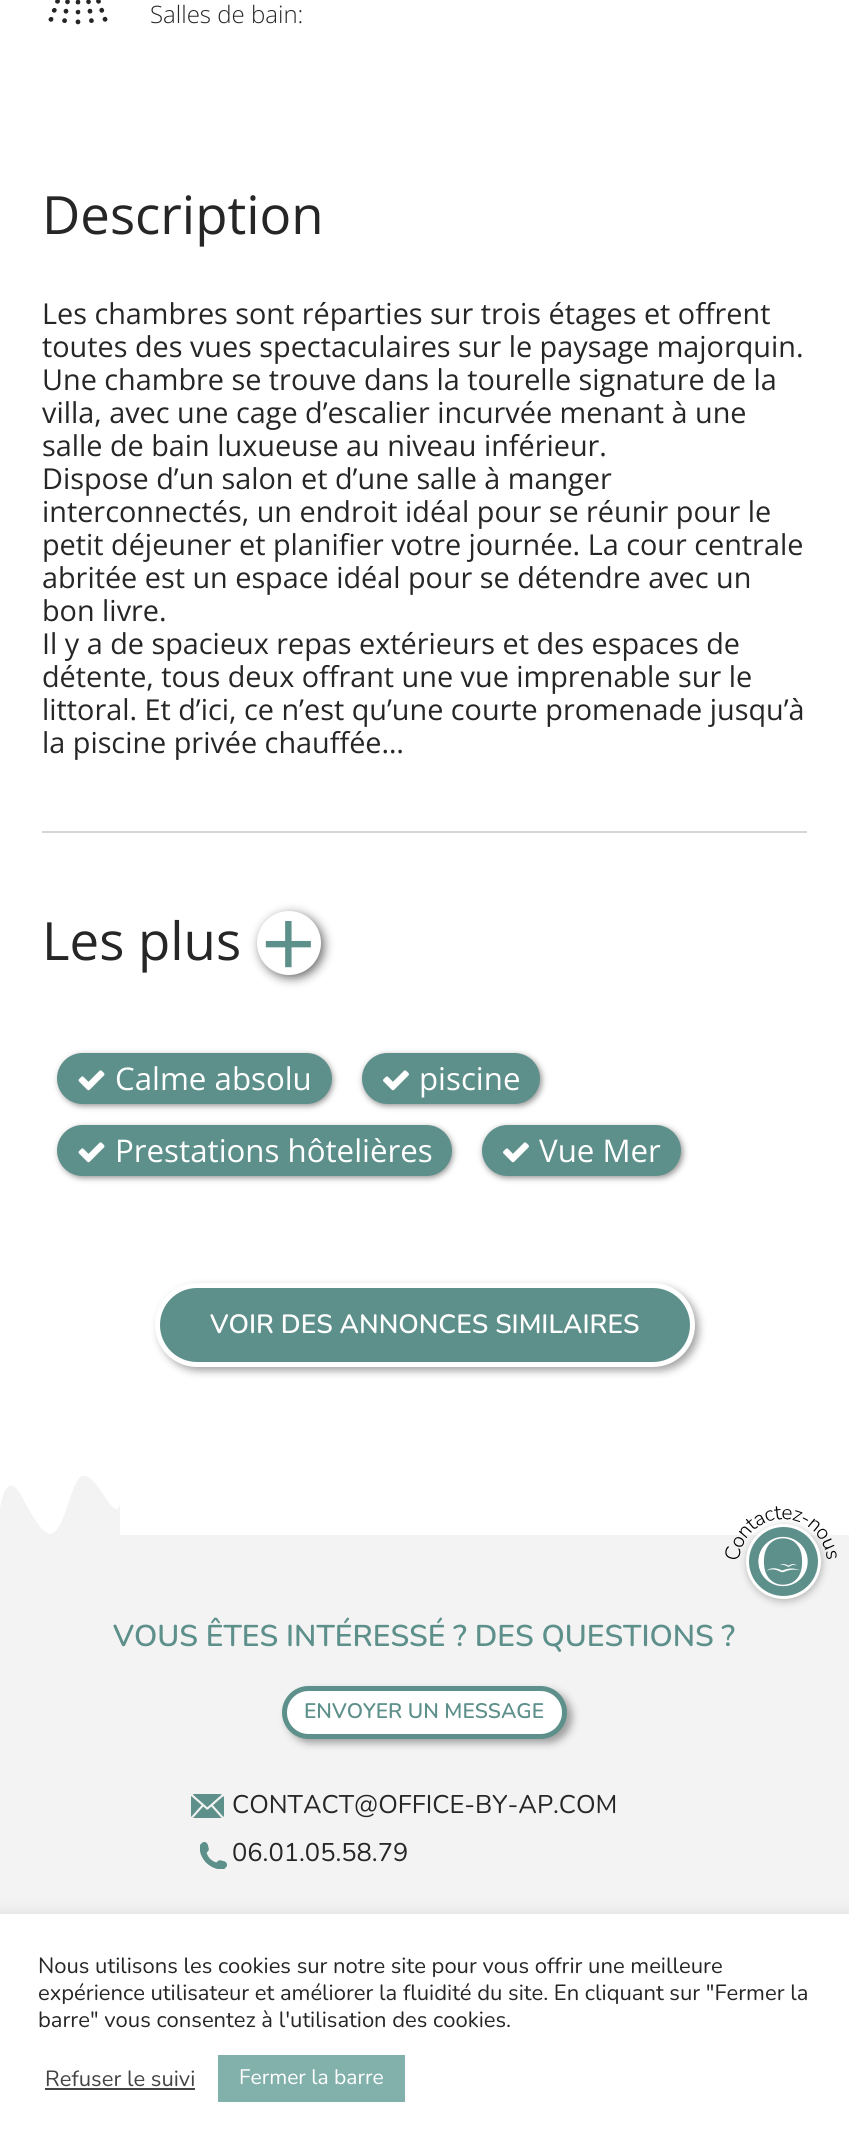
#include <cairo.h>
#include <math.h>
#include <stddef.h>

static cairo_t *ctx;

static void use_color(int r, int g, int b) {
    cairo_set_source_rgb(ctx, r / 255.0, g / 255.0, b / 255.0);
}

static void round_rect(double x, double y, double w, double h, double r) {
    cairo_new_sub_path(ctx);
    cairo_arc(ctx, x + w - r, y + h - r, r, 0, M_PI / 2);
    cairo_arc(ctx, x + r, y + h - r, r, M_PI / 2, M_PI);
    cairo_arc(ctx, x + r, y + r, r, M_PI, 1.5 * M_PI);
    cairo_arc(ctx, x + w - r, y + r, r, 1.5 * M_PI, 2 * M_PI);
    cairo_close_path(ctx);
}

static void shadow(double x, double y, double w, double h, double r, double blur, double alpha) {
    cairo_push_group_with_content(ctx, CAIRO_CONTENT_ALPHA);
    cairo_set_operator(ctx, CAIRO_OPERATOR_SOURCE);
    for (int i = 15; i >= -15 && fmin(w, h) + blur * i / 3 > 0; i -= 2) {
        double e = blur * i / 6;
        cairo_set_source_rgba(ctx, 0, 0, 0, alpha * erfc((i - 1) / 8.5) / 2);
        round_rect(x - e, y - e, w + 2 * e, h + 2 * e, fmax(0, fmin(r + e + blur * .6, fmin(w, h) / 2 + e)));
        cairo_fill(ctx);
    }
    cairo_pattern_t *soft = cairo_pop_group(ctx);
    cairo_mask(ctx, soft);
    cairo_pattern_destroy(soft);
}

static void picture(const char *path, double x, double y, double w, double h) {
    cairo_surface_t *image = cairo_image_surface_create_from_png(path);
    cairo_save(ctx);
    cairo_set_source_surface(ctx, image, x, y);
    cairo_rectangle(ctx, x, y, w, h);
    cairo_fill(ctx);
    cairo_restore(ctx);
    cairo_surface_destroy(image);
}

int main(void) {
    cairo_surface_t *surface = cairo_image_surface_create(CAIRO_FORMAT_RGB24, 849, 2146);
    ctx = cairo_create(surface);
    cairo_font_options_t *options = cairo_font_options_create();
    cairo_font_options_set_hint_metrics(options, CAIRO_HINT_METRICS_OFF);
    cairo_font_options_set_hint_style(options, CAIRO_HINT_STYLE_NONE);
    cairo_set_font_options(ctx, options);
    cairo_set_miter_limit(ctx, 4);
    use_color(255, 255, 255);
    cairo_paint(ctx);
    picture("img1.png", 48, 0, 60, 25);
    cairo_select_font_face(ctx, "Open Sans Light", CAIRO_FONT_SLANT_NORMAL, CAIRO_FONT_WEIGHT_NORMAL);
    cairo_set_font_size(ctx, 24);
    use_color(38, 38, 38);
    cairo_move_to(ctx, 150, 23);
    cairo_show_text(ctx, "Salles de bain:");
    cairo_select_font_face(ctx, "Open Sans", CAIRO_FONT_SLANT_NORMAL, CAIRO_FONT_WEIGHT_NORMAL);
    cairo_set_font_size(ctx, 52.75);
    cairo_move_to(ctx, 42, 234);
    cairo_show_text(ctx, "Description");
    cairo_set_font_size(ctx, 28.8);
    cairo_move_to(ctx, 42, 324);
    cairo_show_text(ctx, "Les chambres sont réparties sur trois étages et offrent");
    cairo_move_to(ctx, 42, 357);
    cairo_show_text(ctx, "toutes des vues spectaculaires sur le paysage majorquin.");
    cairo_move_to(ctx, 42, 390);
    cairo_show_text(ctx, "Une chambre se trouve dans la tourelle signature de la");
    cairo_move_to(ctx, 42, 423);
    cairo_show_text(ctx, "villa, avec une cage d’escalier incurvée menant à une");
    cairo_move_to(ctx, 42, 456);
    cairo_show_text(ctx, "salle de bain luxueuse au niveau inférieur.");
    cairo_move_to(ctx, 42, 489);
    cairo_show_text(ctx, "Dispose d’un salon et d’une salle à manger");
    cairo_move_to(ctx, 42, 522);
    cairo_show_text(ctx, "interconnectés, un endroit idéal pour se réunir pour le");
    cairo_move_to(ctx, 42, 555);
    cairo_show_text(ctx, "petit déjeuner et planifier votre journée. La cour centrale");
    cairo_move_to(ctx, 42, 588);
    cairo_show_text(ctx, "abritée est un espace idéal pour se détendre avec un");
    cairo_move_to(ctx, 42, 621);
    cairo_show_text(ctx, "bon livre.");
    cairo_move_to(ctx, 42, 654);
    cairo_show_text(ctx, "Il y a de spacieux repas extérieurs et des espaces de");
    cairo_move_to(ctx, 42, 687);
    cairo_show_text(ctx, "détente, tous deux offrant une vue imprenable sur le");
    cairo_move_to(ctx, 42, 720);
    cairo_show_text(ctx, "littoral. Et d’ici, ce n’est qu’une courte promenade jusqu’à");
    cairo_move_to(ctx, 42, 753);
    cairo_show_text(ctx, "la piscine privée chauffée…");
    use_color(214, 214, 214);
    cairo_rectangle(ctx, 42, 831, 765, 2);
    cairo_fill(ctx);
    cairo_set_font_size(ctx, 52.75);
    use_color(38, 38, 38);
    cairo_move_to(ctx, 42, 960);
    cairo_show_text(ctx, "Les plus");
    use_color(0, 0, 0);
    shadow(260, 914, 64, 64, 32, 5, 0.57);
    use_color(255, 255, 255);
    cairo_arc(ctx, 289, 943, 32, 0, 2 * M_PI);
    cairo_fill(ctx);
    cairo_set_font_size(ctx, 96);
    use_color(94, 144, 139);
    cairo_move_to(ctx, 261, 978);
    cairo_show_text(ctx, "+");
    use_color(0, 0, 0);
    shadow(59, 1055, 274, 51, 25.5, 3, 0.41);
    use_color(94, 144, 139);
    round_rect(57, 1053, 275, 51, 25.5);
    cairo_fill(ctx);
    picture("img2.png", 78, 1070, 27, 21);
    cairo_set_font_size(ctx, 31.25);
    use_color(255, 255, 255);
    cairo_move_to(ctx, 115, 1090);
    cairo_show_text(ctx, "Calme absolu");
    use_color(0, 0, 0);
    shadow(363, 1055, 179, 51, 25.5, 3, 0.41);
    use_color(94, 144, 139);
    round_rect(362, 1053, 178, 51, 25.5);
    cairo_fill(ctx);
    picture("img3.png", 383, 1070, 26, 21);
    use_color(255, 255, 255);
    cairo_move_to(ctx, 419, 1090);
    cairo_show_text(ctx, "piscine");
    use_color(0, 0, 0);
    shadow(59, 1127, 394, 51, 25.5, 3, 0.41);
    use_color(94, 144, 139);
    round_rect(57, 1125, 395, 51, 25.5);
    cairo_fill(ctx);
    picture("img2.png", 78, 1142, 27, 21);
    use_color(255, 255, 255);
    cairo_move_to(ctx, 115, 1162);
    cairo_show_text(ctx, "Prestations hôtelières");
    use_color(0, 0, 0);
    shadow(483, 1127, 200, 51, 25.5, 3, 0.41);
    use_color(94, 144, 139);
    round_rect(482, 1125, 199, 51, 25.5);
    cairo_fill(ctx);
    picture("img3.png", 503, 1142, 26, 21);
    use_color(255, 255, 255);
    cairo_move_to(ctx, 539, 1162);
    cairo_show_text(ctx, "Vue Mer");
    use_color(0, 0, 0);
    shadow(159, 1287, 540, 84, 42, 4, 0.35);
    use_color(94, 144, 139);
    round_rect(157.5, 1285.5, 535, 79, 39.5);
    cairo_fill_preserve(ctx);
    use_color(255, 255, 255);
    cairo_set_line_width(ctx, 5);
    cairo_stroke(ctx);
    cairo_select_font_face(ctx, "Nunito SemiBold", CAIRO_FONT_SLANT_NORMAL, CAIRO_FONT_WEIGHT_NORMAL);
    cairo_set_font_size(ctx, 26.4);
    cairo_move_to(ctx, 210, 1333);
    cairo_show_text(ctx, "VOIR DES ANNONCES SIMILAIRES");
    cairo_save(ctx);
    cairo_rectangle(ctx, 0, 1476, 120, 60);
    cairo_clip(ctx);
    use_color(243, 243, 243);
    cairo_set_fill_rule(ctx, CAIRO_FILL_RULE_EVEN_ODD);
    cairo_new_path(ctx);
    cairo_move_to(ctx, 0, 1508);
    cairo_curve_to(ctx, 0, 1508, 6, 1466, 22, 1497);
    cairo_curve_to(ctx, 45, 1540, 53, 1545, 65, 1513);
    cairo_curve_to(ctx, 77, 1478, 80, 1458, 105, 1497);
    cairo_curve_to(ctx, 120, 1521, 120, 1502, 120, 1502);
    cairo_line_to(ctx, 120, 1536);
    cairo_line_to(ctx, 0, 1536);
    cairo_close_path(ctx);
    cairo_fill(ctx);
    cairo_restore(ctx);
    use_color(243, 243, 243);
    cairo_rectangle(ctx, 0, 1535, 849, 379);
    cairo_fill(ctx);
    use_color(38, 38, 38);
    shadow(747, 1526, 75, 75, 37.5, 4, 0.31);
    use_color(94, 144, 139);
    cairo_arc(ctx, 783.5, 1561.5, 36, 0, 2 * M_PI);
    cairo_fill_preserve(ctx);
    use_color(255, 255, 255);
    cairo_set_line_width(ctx, 3);
    cairo_stroke(ctx);
    picture("img5.png", 758, 1536, 50, 51);
    picture("img4.png", 725, 1506, 112, 53);
    cairo_set_font_size(ctx, 30);
    use_color(94, 144, 139);
    cairo_move_to(ctx, 113, 1646);
    cairo_show_text(ctx, "VOUS ÊTES INTÉRESSÉ ? DES QUESTIONS ?");
    use_color(0, 0, 0);
    shadow(287, 1691, 285, 52, 26, 4, 0.35);
    use_color(255, 255, 255);
    round_rect(284.5, 1688.5, 280, 48, 24);
    cairo_fill_preserve(ctx);
    use_color(94, 144, 139);
    cairo_set_line_width(ctx, 5);
    cairo_stroke(ctx);
    cairo_set_font_size(ctx, 21);
    cairo_move_to(ctx, 304, 1718);
    cairo_show_text(ctx, "ENVOYER UN MESSAGE");
    picture("img6.png", 191, 1794, 33, 24);
    cairo_select_font_face(ctx, "Nunito", CAIRO_FONT_SLANT_NORMAL, CAIRO_FONT_WEIGHT_NORMAL);
    cairo_set_font_size(ctx, 25.5);
    use_color(38, 38, 38);
    cairo_move_to(ctx, 232, 1813);
    cairo_show_text(ctx, "CONTACT@OFFICE-BY-AP.COM");
    picture("img7.png", 200, 1842, 27, 27);
    cairo_move_to(ctx, 232, 1861);
    cairo_show_text(ctx, "06.01.05.58.79");
    use_color(172, 171, 171);
    shadow(0, 1913, 849, 232, 0, 7.5, 0.3);
    use_color(255, 255, 255);
    cairo_rectangle(ctx, 0, 1914, 849, 232);
    cairo_fill(ctx);
    cairo_set_font_size(ctx, 22);
    use_color(38, 38, 38);
    cairo_move_to(ctx, 38, 1973);
    cairo_show_text(ctx, "Nous utilisons les cookies sur notre site pour vous offrir une meilleure");
    cairo_move_to(ctx, 38, 2000);
    cairo_show_text(ctx, "expérience utilisateur et améliorer la fluidité du site. En cliquant sur \"Fermer la");
    cairo_move_to(ctx, 38, 2027);
    cairo_show_text(ctx, "barre\" vous consentez à l'utilisation des cookies.");
    use_color(68, 68, 68);
    cairo_move_to(ctx, 45, 2086);
    cairo_show_text(ctx, "Refuser le suivi");
    cairo_rectangle(ctx, 45, 2088, 150, 2);
    cairo_fill(ctx);
    use_color(130, 177, 171);
    cairo_rectangle(ctx, 218, 2055, 187, 47);
    cairo_fill(ctx);
    cairo_set_font_size(ctx, 21);
    use_color(255, 255, 255);
    cairo_move_to(ctx, 239, 2084);
    cairo_show_text(ctx, "Fermer la barre");
    cairo_surface_write_to_png(surface, "result.png");
    cairo_font_options_destroy(options);
    cairo_destroy(ctx);
    cairo_surface_destroy(surface);
    return 0;
}
